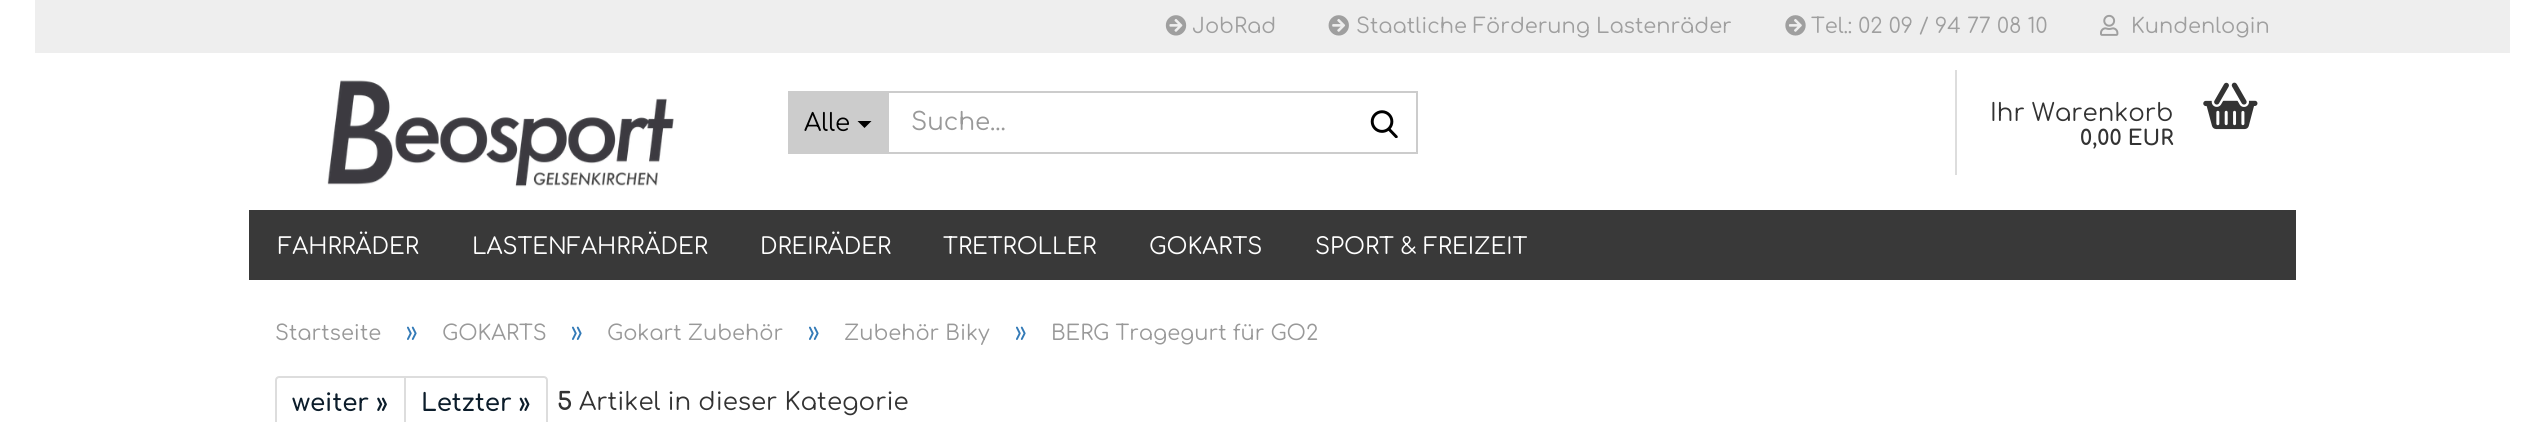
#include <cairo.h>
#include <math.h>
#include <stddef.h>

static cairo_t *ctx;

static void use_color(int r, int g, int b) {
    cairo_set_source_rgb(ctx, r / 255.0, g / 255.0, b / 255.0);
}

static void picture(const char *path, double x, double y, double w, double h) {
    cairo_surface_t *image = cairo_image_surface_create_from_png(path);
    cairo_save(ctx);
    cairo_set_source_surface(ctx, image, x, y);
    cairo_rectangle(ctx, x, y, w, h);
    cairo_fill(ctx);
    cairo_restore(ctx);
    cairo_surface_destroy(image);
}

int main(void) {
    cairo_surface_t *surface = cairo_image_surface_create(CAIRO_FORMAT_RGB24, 2543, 422);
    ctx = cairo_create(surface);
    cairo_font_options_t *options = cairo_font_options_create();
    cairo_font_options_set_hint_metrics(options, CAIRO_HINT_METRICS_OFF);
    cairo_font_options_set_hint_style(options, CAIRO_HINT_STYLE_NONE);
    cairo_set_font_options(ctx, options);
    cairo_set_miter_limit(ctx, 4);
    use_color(255, 255, 255);
    cairo_paint(ctx);
    use_color(238, 238, 238);
    cairo_rectangle(ctx, 35, 0, 2475, 53);
    cairo_fill(ctx);
    picture("img1.png", 1165, 15, 22, 21);
    cairo_select_font_face(ctx, "Comfortaa", CAIRO_FONT_SLANT_NORMAL, CAIRO_FONT_WEIGHT_NORMAL);
    cairo_set_font_size(ctx, 21);
    use_color(159, 159, 159);
    cairo_move_to(ctx, 1192, 33);
    cairo_show_text(ctx, "JobRad");
    picture("img2.png", 1328, 15, 21, 21);
    cairo_move_to(ctx, 1356, 33);
    cairo_show_text(ctx, "Staatliche Förderung Lastenräder");
    picture("img3.png", 1785, 15, 21, 21);
    cairo_move_to(ctx, 1811, 33);
    cairo_show_text(ctx, "Tel.: 02 09 / 94 77 08 10");
    picture("img4.png", 2100, 14, 19, 22);
    cairo_move_to(ctx, 2131, 33);
    cairo_show_text(ctx, "Kundenlogin");
    picture("img5.png", 327, 80, 347, 107);
    use_color(204, 204, 204);
    cairo_rectangle(ctx, 788, 91, 101, 63);
    cairo_fill(ctx);
    cairo_set_font_size(ctx, 24.5);
    use_color(0, 0, 0);
    cairo_move_to(ctx, 804, 131);
    cairo_show_text(ctx, "Alle");
    cairo_new_path(ctx);
    cairo_move_to(ctx, 857.5, 121);
    cairo_line_to(ctx, 871.5, 121);
    cairo_line_to(ctx, 864.5, 128);
    cairo_close_path(ctx);
    cairo_fill(ctx);
    use_color(204, 204, 204);
    cairo_rectangle(ctx, 889, 91, 529, 2);
    cairo_fill(ctx);
    cairo_rectangle(ctx, 1416, 91, 2, 63);
    cairo_fill(ctx);
    cairo_rectangle(ctx, 889, 152, 529, 2);
    cairo_fill(ctx);
    use_color(153, 153, 153);
    cairo_move_to(ctx, 911, 130);
    cairo_show_text(ctx, "Suche...");
    picture("img6.png", 1370, 110, 28, 28);
    use_color(221, 221, 221);
    cairo_rectangle(ctx, 1955, 70, 2, 105);
    cairo_fill(ctx);
    use_color(51, 51, 51);
    cairo_move_to(ctx, 1990, 121);
    cairo_show_text(ctx, "Ihr Warenkorb");
    cairo_select_font_face(ctx, "Comfortaa", CAIRO_FONT_SLANT_NORMAL, CAIRO_FONT_WEIGHT_BOLD);
    cairo_set_font_size(ctx, 21);
    cairo_move_to(ctx, 2080, 145);
    cairo_show_text(ctx, "0,00 EUR");
    picture("img7.png", 2203, 82, 55, 48);
    use_color(57, 57, 57);
    cairo_rectangle(ctx, 249, 210, 2047, 70);
    cairo_fill(ctx);
    cairo_select_font_face(ctx, "Comfortaa", CAIRO_FONT_SLANT_NORMAL, CAIRO_FONT_WEIGHT_NORMAL);
    cairo_set_font_size(ctx, 22.75);
    use_color(255, 255, 255);
    cairo_move_to(ctx, 278, 254);
    cairo_show_text(ctx, "FAHRRÄDER");
    cairo_move_to(ctx, 472, 254);
    cairo_show_text(ctx, "LASTENFAHRRÄDER");
    cairo_move_to(ctx, 760, 254);
    cairo_show_text(ctx, "DREIRÄDER");
    cairo_move_to(ctx, 943, 254);
    cairo_show_text(ctx, "TRETROLLER");
    cairo_move_to(ctx, 1149, 254);
    cairo_show_text(ctx, "GOKARTS");
    cairo_move_to(ctx, 1315, 254);
    cairo_show_text(ctx, "SPORT & FREIZEIT");
    cairo_set_font_size(ctx, 21);
    use_color(153, 153, 153);
    cairo_move_to(ctx, 275, 340);
    cairo_show_text(ctx, "Startseite");
    cairo_set_font_size(ctx, 24.5);
    use_color(51, 122, 183);
    cairo_move_to(ctx, 406, 340);
    cairo_show_text(ctx, "»");
    cairo_set_font_size(ctx, 21);
    use_color(153, 153, 153);
    cairo_move_to(ctx, 442, 340);
    cairo_show_text(ctx, "GOKARTS");
    cairo_set_font_size(ctx, 24.5);
    use_color(51, 122, 183);
    cairo_move_to(ctx, 571, 340);
    cairo_show_text(ctx, "»");
    cairo_set_font_size(ctx, 21);
    use_color(153, 153, 153);
    cairo_move_to(ctx, 607, 340);
    cairo_show_text(ctx, "Gokart Zubehör");
    cairo_set_font_size(ctx, 24.5);
    use_color(51, 122, 183);
    cairo_move_to(ctx, 808, 340);
    cairo_show_text(ctx, "»");
    cairo_set_font_size(ctx, 21);
    use_color(153, 153, 153);
    cairo_move_to(ctx, 844, 340);
    cairo_show_text(ctx, "Zubehör Biky");
    cairo_set_font_size(ctx, 24.5);
    use_color(51, 122, 183);
    cairo_move_to(ctx, 1015, 340);
    cairo_show_text(ctx, "»");
    cairo_set_font_size(ctx, 21);
    use_color(153, 153, 153);
    cairo_move_to(ctx, 1051, 340);
    cairo_show_text(ctx, "BERG Tragegurt für GO2");
    cairo_new_path(ctx);
    cairo_move_to(ctx, 279, 377);
    cairo_line_to(ctx, 405, 377);
    cairo_line_to(ctx, 405, 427);
    cairo_line_to(ctx, 279, 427);
    cairo_curve_to(ctx, 277.5, 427, 276, 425.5, 276, 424);
    cairo_line_to(ctx, 276, 380);
    cairo_curve_to(ctx, 276, 378.5, 277.5, 377, 279, 377);
    cairo_close_path(ctx);
    use_color(221, 221, 221);
    cairo_stroke(ctx);
    cairo_select_font_face(ctx, "Comfortaa SemiBold", CAIRO_FONT_SLANT_NORMAL, CAIRO_FONT_WEIGHT_NORMAL);
    cairo_set_font_size(ctx, 24.5);
    use_color(12, 29, 43);
    cairo_move_to(ctx, 292, 411);
    cairo_show_text(ctx, "weiter »");
    use_color(255, 255, 255);
    cairo_new_path(ctx);
    cairo_move_to(ctx, 405, 377);
    cairo_line_to(ctx, 544, 377);
    cairo_curve_to(ctx, 545.5, 377, 547, 378.5, 547, 380);
    cairo_line_to(ctx, 547, 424);
    cairo_curve_to(ctx, 547, 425.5, 545.5, 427, 544, 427);
    cairo_line_to(ctx, 405, 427);
    cairo_close_path(ctx);
    cairo_fill_preserve(ctx);
    use_color(221, 221, 221);
    cairo_stroke(ctx);
    use_color(12, 29, 43);
    cairo_move_to(ctx, 421, 411);
    cairo_show_text(ctx, "Letzter »");
    cairo_select_font_face(ctx, "Comfortaa", CAIRO_FONT_SLANT_NORMAL, CAIRO_FONT_WEIGHT_BOLD);
    use_color(51, 51, 51);
    cairo_move_to(ctx, 557, 410);
    cairo_show_text(ctx, "5");
    cairo_select_font_face(ctx, "Comfortaa", CAIRO_FONT_SLANT_NORMAL, CAIRO_FONT_WEIGHT_NORMAL);
    cairo_move_to(ctx, 579, 410);
    cairo_show_text(ctx, "Artikel in dieser Kategorie");
    cairo_surface_write_to_png(surface, "result.png");
    cairo_font_options_destroy(options);
    cairo_destroy(ctx);
    cairo_surface_destroy(surface);
    return 0;
}
